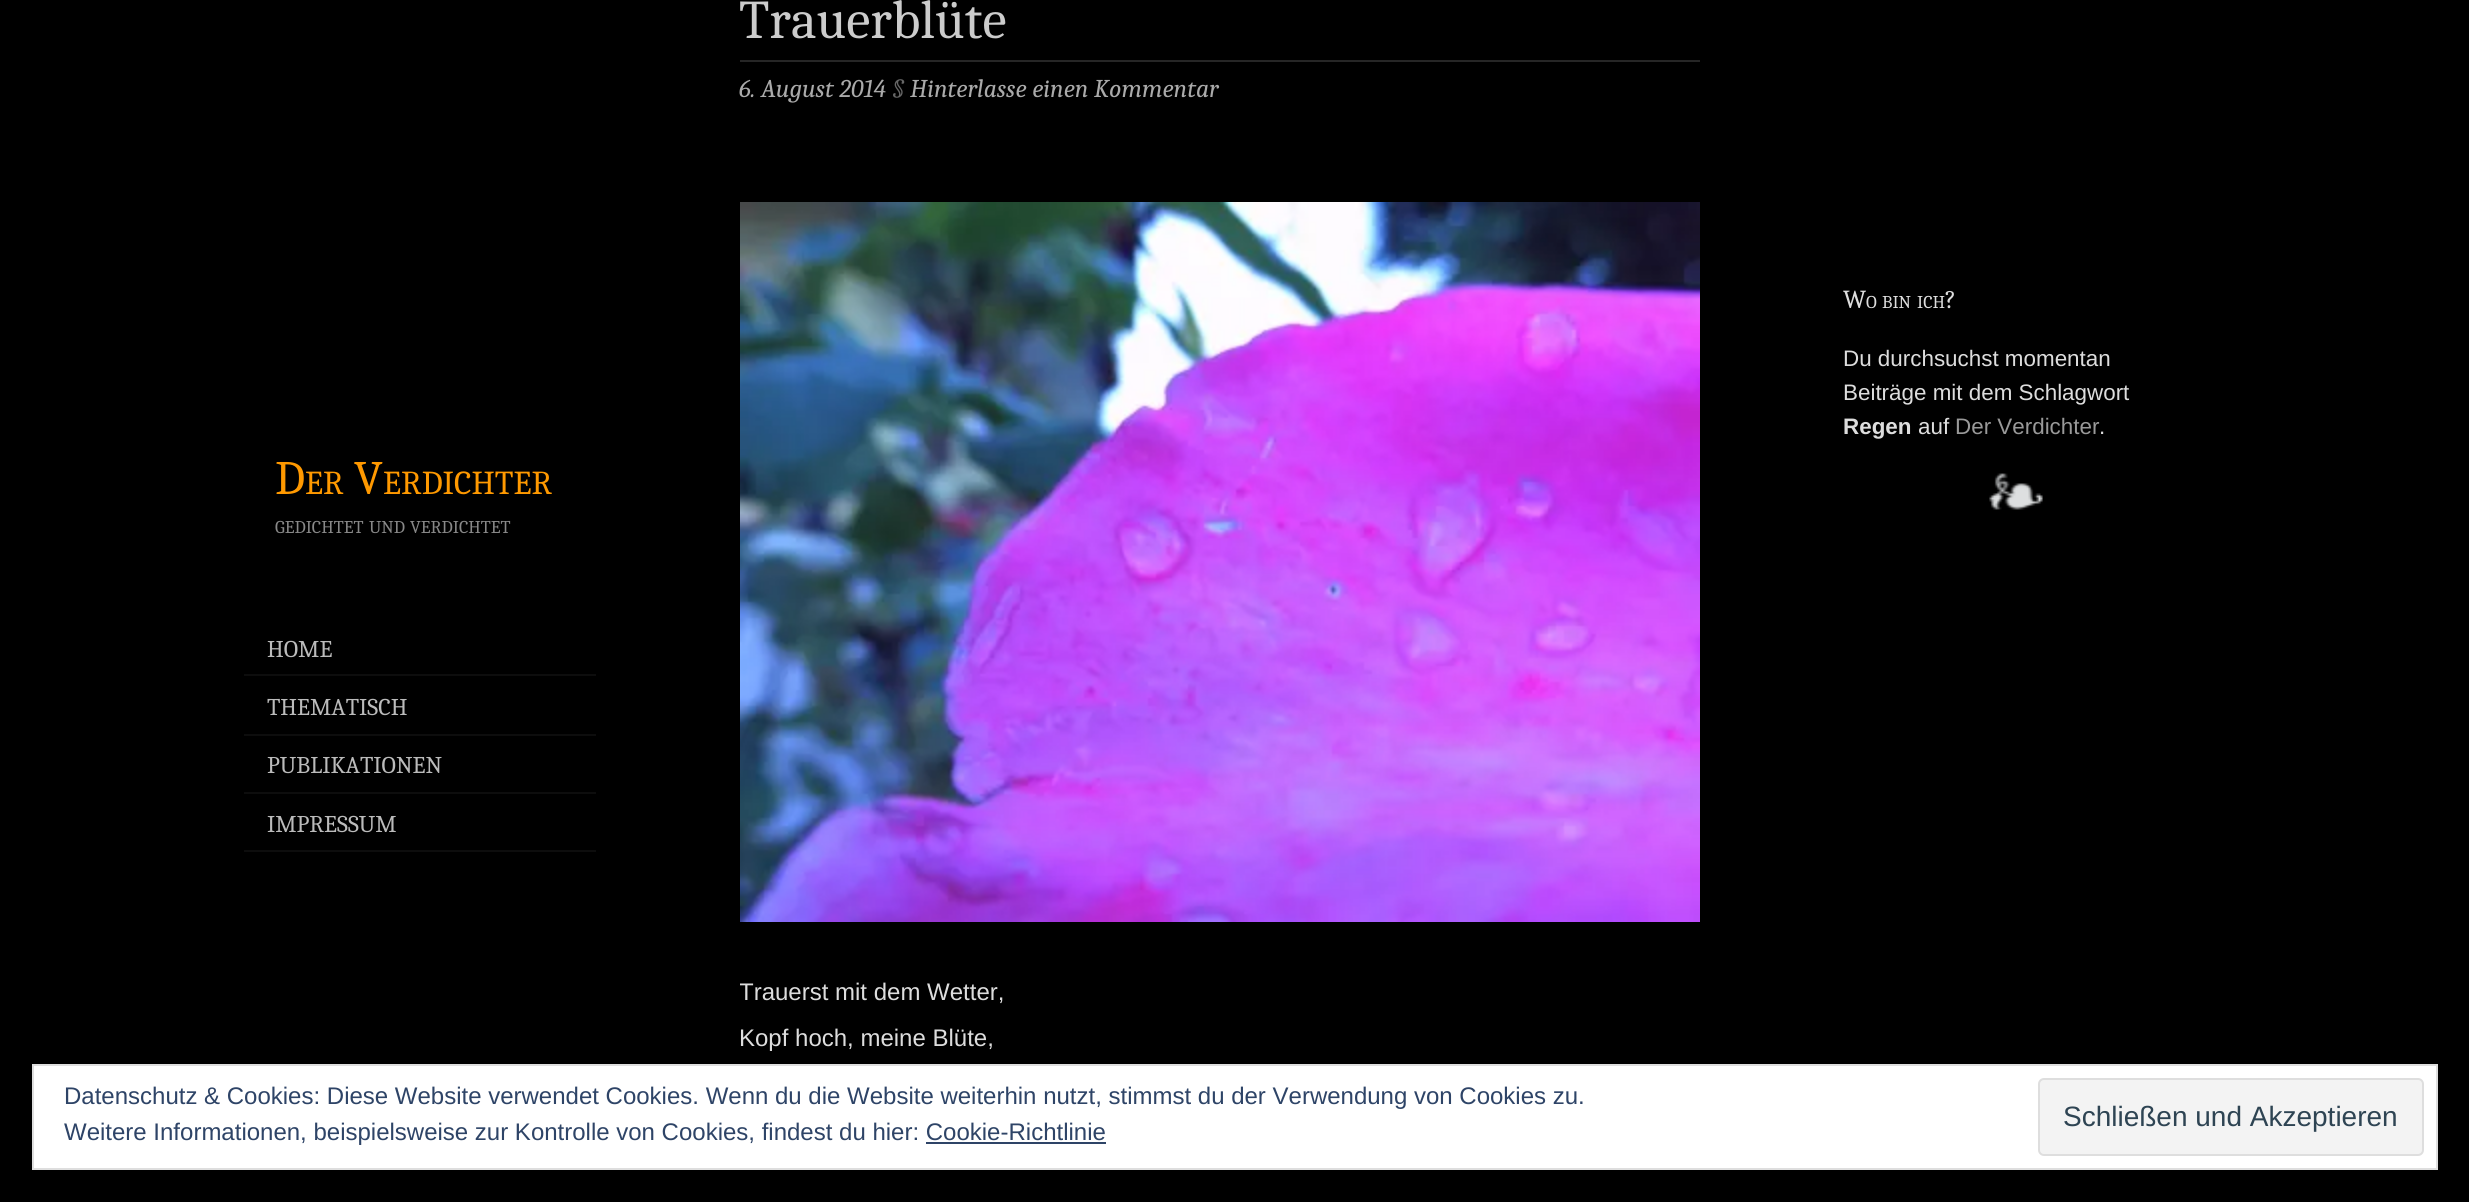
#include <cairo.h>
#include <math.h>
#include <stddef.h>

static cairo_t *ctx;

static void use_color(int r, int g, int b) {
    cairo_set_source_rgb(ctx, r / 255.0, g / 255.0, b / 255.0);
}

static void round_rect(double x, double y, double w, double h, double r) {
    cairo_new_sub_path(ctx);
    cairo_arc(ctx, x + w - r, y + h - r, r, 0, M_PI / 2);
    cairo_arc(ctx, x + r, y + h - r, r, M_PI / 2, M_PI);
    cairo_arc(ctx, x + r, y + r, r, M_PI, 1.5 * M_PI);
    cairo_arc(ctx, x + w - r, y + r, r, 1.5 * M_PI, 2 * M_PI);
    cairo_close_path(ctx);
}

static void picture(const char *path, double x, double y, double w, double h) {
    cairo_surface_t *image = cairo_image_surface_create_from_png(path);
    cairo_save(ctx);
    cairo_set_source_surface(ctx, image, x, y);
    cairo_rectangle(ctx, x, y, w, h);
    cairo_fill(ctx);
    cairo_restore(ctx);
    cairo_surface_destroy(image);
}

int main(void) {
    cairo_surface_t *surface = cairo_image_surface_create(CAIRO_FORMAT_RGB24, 2469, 1202);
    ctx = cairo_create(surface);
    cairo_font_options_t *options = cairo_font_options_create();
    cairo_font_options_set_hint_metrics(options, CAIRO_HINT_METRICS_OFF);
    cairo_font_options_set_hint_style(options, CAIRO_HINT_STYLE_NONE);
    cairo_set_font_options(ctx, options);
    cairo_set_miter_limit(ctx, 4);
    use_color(0, 0, 0);
    cairo_paint(ctx);
    cairo_select_font_face(ctx, "Caladea", CAIRO_FONT_SLANT_NORMAL, CAIRO_FONT_WEIGHT_NORMAL);
    cairo_set_font_size(ctx, 48);
    use_color(255, 153, 0);
    cairo_move_to(ctx, 275, 494);
    cairo_show_text(ctx, "D");
    cairo_set_font_size(ctx, 33.5);
    cairo_move_to(ctx, 305, 494);
    cairo_show_text(ctx, "ER");
    cairo_set_font_size(ctx, 48);
    cairo_move_to(ctx, 354, 494);
    cairo_show_text(ctx, "V");
    cairo_set_font_size(ctx, 33.5);
    cairo_move_to(ctx, 383, 494);
    cairo_show_text(ctx, "ERDICHTER");
    cairo_set_font_size(ctx, 18);
    use_color(136, 136, 136);
    cairo_move_to(ctx, 275, 533);
    cairo_show_text(ctx, "GEDICHTET");
    cairo_move_to(ctx, 369, 533);
    cairo_show_text(ctx, "UND");
    cairo_move_to(ctx, 410, 533);
    cairo_show_text(ctx, "VERDICHTET");
    use_color(13, 13, 13);
    cairo_rectangle(ctx, 244, 674, 352, 2);
    cairo_fill(ctx);
    cairo_set_font_size(ctx, 24);
    use_color(187, 187, 187);
    cairo_move_to(ctx, 267, 657);
    cairo_show_text(ctx, "HOME");
    use_color(13, 13, 13);
    cairo_rectangle(ctx, 244, 734, 352, 2);
    cairo_fill(ctx);
    use_color(187, 187, 187);
    cairo_move_to(ctx, 267, 715);
    cairo_show_text(ctx, "THEMATISCH");
    use_color(13, 13, 13);
    cairo_rectangle(ctx, 244, 792, 352, 2);
    cairo_fill(ctx);
    use_color(187, 187, 187);
    cairo_move_to(ctx, 267, 773);
    cairo_show_text(ctx, "PUBLIKATIONEN");
    use_color(13, 13, 13);
    cairo_rectangle(ctx, 244, 850, 352, 2);
    cairo_fill(ctx);
    use_color(187, 187, 187);
    cairo_move_to(ctx, 267, 832);
    cairo_show_text(ctx, "IMPRESSUM");
    use_color(38, 38, 38);
    cairo_rectangle(ctx, 740, 60, 960, 2);
    cairo_fill(ctx);
    cairo_set_font_size(ctx, 54.5);
    use_color(204, 204, 204);
    cairo_move_to(ctx, 739, 38);
    cairo_show_text(ctx, "Trauerblüte");
    cairo_select_font_face(ctx, "Caladea", CAIRO_FONT_SLANT_ITALIC, CAIRO_FONT_WEIGHT_NORMAL);
    cairo_set_font_size(ctx, 25.6);
    use_color(170, 170, 170);
    cairo_move_to(ctx, 739, 97);
    cairo_show_text(ctx, "6. August 2014");
    use_color(102, 102, 102);
    cairo_move_to(ctx, 892, 97);
    cairo_show_text(ctx, "§");
    use_color(170, 170, 170);
    cairo_move_to(ctx, 910, 97);
    cairo_show_text(ctx, "Hinterlasse einen Kommentar");
    picture("img1.png", 740, 202, 960, 720);
    cairo_save(ctx);
    cairo_rectangle(ctx, 740, 154, 960, 1046);
    cairo_clip(ctx);
    cairo_select_font_face(ctx, "Liberation Sans", CAIRO_FONT_SLANT_NORMAL, CAIRO_FONT_WEIGHT_NORMAL);
    cairo_set_font_size(ctx, 24);
    use_color(221, 221, 221);
    cairo_move_to(ctx, 739, 1000);
    cairo_show_text(ctx, "Trauerst mit dem Wetter,");
    cairo_restore(ctx);
    cairo_select_font_face(ctx, "Liberation Sans", CAIRO_FONT_SLANT_NORMAL, CAIRO_FONT_WEIGHT_NORMAL);
    cairo_set_font_size(ctx, 24);
    use_color(221, 221, 221);
    cairo_move_to(ctx, 739, 1046);
    cairo_show_text(ctx, "Kopf hoch, meine Blüte,");
    cairo_select_font_face(ctx, "Caladea", CAIRO_FONT_SLANT_NORMAL, CAIRO_FONT_WEIGHT_NORMAL);
    cairo_set_font_size(ctx, 26);
    cairo_move_to(ctx, 1843, 308);
    cairo_show_text(ctx, "W");
    cairo_set_font_size(ctx, 18);
    cairo_move_to(ctx, 1866, 308);
    cairo_show_text(ctx, "O");
    cairo_move_to(ctx, 1882, 308);
    cairo_show_text(ctx, "BIN");
    cairo_move_to(ctx, 1917, 308);
    cairo_show_text(ctx, "ICH");
    cairo_set_font_size(ctx, 26);
    cairo_move_to(ctx, 1945, 308);
    cairo_show_text(ctx, "?");
    cairo_select_font_face(ctx, "Liberation Sans", CAIRO_FONT_SLANT_NORMAL, CAIRO_FONT_WEIGHT_NORMAL);
    cairo_set_font_size(ctx, 22.4);
    cairo_move_to(ctx, 1843, 366);
    cairo_show_text(ctx, "Du durchsuchst momentan");
    cairo_move_to(ctx, 1843, 400);
    cairo_show_text(ctx, "Beiträge mit dem Schlagwort");
    cairo_select_font_face(ctx, "Liberation Sans", CAIRO_FONT_SLANT_NORMAL, CAIRO_FONT_WEIGHT_BOLD);
    cairo_move_to(ctx, 1843, 434);
    cairo_show_text(ctx, "Regen");
    cairo_select_font_face(ctx, "Liberation Sans", CAIRO_FONT_SLANT_NORMAL, CAIRO_FONT_WEIGHT_NORMAL);
    cairo_move_to(ctx, 1918, 434);
    cairo_show_text(ctx, "auf");
    use_color(153, 153, 153);
    cairo_move_to(ctx, 1955, 434);
    cairo_show_text(ctx, "Der Verdichter");
    use_color(221, 221, 221);
    cairo_move_to(ctx, 2099, 434);
    cairo_show_text(ctx, ".");
    picture("img2.png", 1989, 473, 54, 37);
    use_color(255, 255, 255);
    cairo_rectangle(ctx, 33, 1065, 2404, 104);
    cairo_fill_preserve(ctx);
    use_color(222, 222, 222);
    cairo_stroke(ctx);
    cairo_set_font_size(ctx, 24);
    use_color(46, 68, 103);
    cairo_move_to(ctx, 64, 1104);
    cairo_show_text(ctx, "Datenschutz & Cookies: Diese Website verwendet Cookies. Wenn du die Website weiterhin nutzt, stimmst du der Verwendung von Cookies zu.");
    cairo_move_to(ctx, 64, 1140);
    cairo_show_text(ctx, "Weitere Informationen, beispielsweise zur Kontrolle von Cookies, findest du hier: Cookie-Richtlinie");
    use_color(243, 243, 243);
    round_rect(2039, 1079, 384, 76, 5);
    cairo_fill_preserve(ctx);
    use_color(222, 222, 222);
    cairo_stroke(ctx);
    cairo_set_font_size(ctx, 28);
    use_color(46, 68, 83);
    cairo_move_to(ctx, 2063, 1126);
    cairo_show_text(ctx, "Schließen und Akzeptieren");
    use_color(46, 68, 103);
    cairo_rectangle(ctx, 926, 1142, 180, 2);
    cairo_fill(ctx);
    cairo_surface_write_to_png(surface, "result.png");
    cairo_font_options_destroy(options);
    cairo_destroy(ctx);
    cairo_surface_destroy(surface);
    return 0;
}
